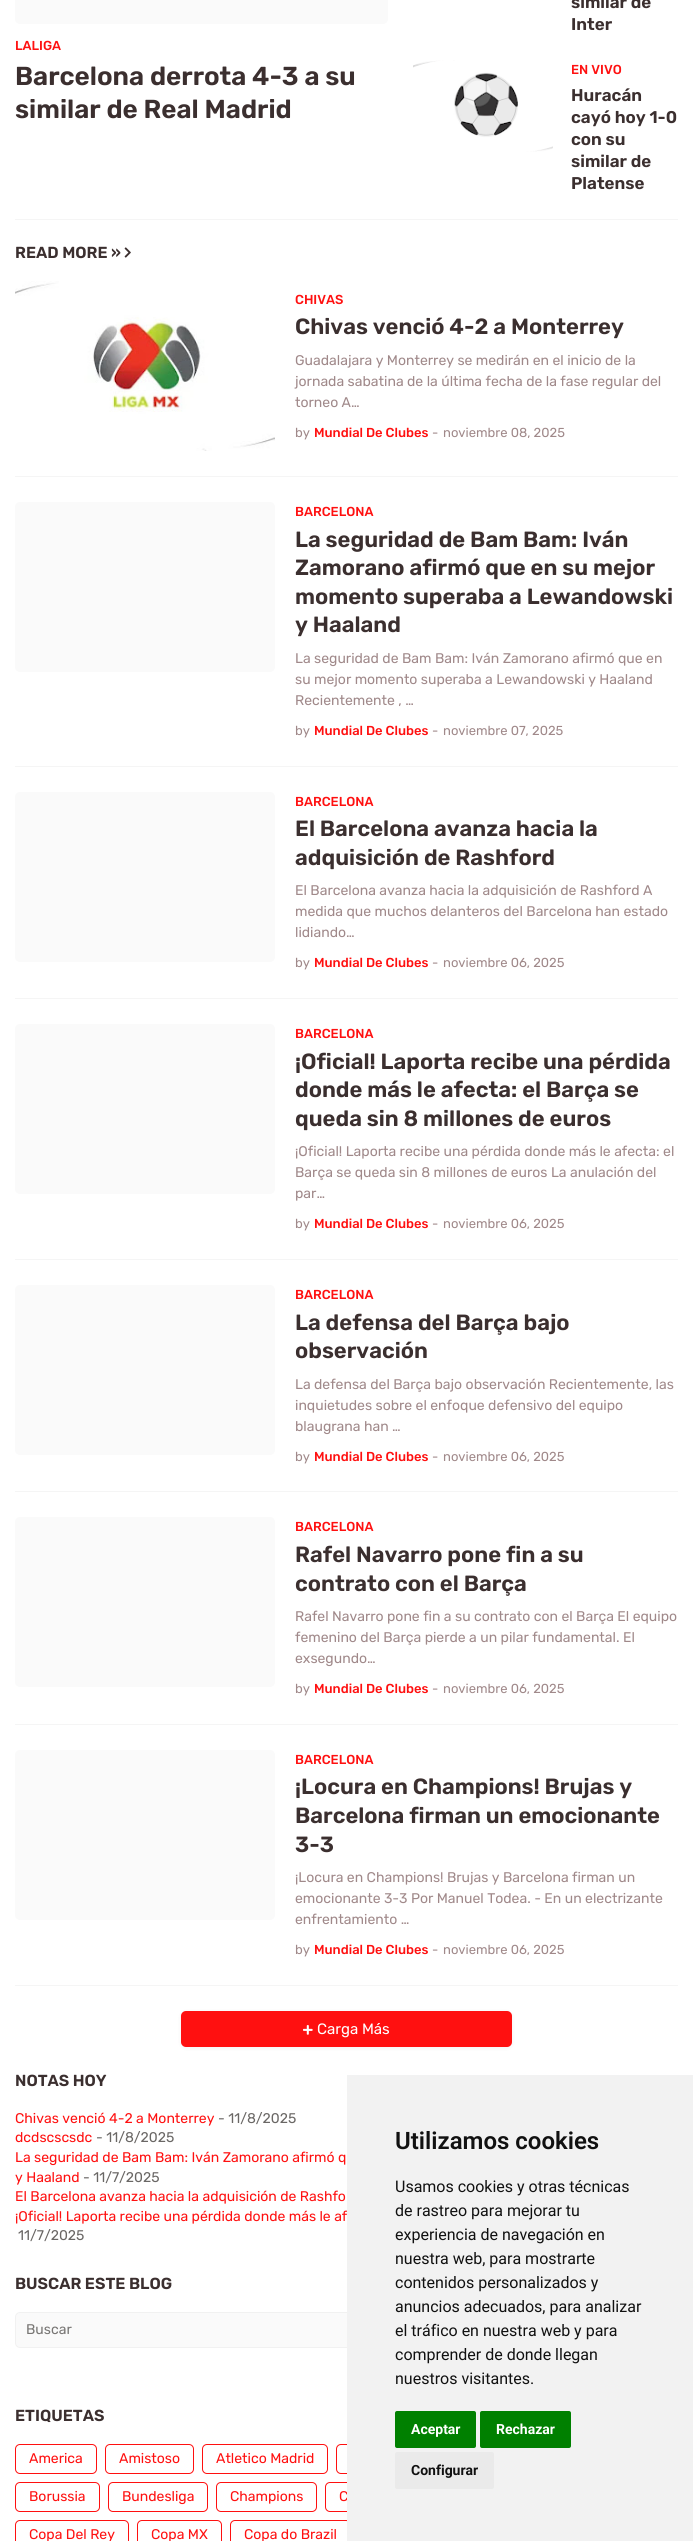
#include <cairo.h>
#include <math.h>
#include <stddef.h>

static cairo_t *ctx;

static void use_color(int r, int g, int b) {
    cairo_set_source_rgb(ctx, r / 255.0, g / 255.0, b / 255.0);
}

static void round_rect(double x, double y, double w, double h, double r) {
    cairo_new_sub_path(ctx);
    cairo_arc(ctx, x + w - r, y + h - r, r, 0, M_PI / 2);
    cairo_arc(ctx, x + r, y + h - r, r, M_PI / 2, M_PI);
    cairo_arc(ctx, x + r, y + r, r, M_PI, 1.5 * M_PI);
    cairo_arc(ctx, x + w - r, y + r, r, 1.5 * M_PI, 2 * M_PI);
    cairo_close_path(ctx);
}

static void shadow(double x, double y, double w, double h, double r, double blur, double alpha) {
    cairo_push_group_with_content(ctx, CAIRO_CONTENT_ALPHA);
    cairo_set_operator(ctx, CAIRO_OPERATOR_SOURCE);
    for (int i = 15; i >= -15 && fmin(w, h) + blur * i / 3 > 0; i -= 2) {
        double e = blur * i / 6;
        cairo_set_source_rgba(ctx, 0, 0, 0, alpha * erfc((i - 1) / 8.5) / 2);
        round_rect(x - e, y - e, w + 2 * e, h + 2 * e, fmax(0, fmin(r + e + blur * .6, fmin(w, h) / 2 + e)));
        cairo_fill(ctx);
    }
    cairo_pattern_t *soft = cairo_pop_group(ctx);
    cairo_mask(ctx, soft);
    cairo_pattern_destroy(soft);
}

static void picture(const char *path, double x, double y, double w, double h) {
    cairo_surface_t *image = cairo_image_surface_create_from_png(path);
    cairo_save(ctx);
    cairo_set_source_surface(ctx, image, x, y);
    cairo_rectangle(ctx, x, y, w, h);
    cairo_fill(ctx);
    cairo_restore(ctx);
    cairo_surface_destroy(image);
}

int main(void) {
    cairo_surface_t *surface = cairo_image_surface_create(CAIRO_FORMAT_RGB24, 693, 2541);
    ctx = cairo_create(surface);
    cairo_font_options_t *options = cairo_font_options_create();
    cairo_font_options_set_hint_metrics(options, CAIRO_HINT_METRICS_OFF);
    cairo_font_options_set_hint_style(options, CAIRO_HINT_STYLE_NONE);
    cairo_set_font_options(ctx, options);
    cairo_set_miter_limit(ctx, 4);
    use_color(255, 255, 255);
    cairo_paint(ctx);
    use_color(245, 245, 245);
    cairo_rectangle(ctx, 15, 219, 663, 1);
    cairo_fill(ctx);
    use_color(250, 250, 250);
    round_rect(15, -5, 373, 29, 5);
    cairo_fill(ctx);
    cairo_select_font_face(ctx, "Rubik Medium", CAIRO_FONT_SLANT_NORMAL, CAIRO_FONT_WEIGHT_NORMAL);
    cairo_set_font_size(ctx, 13);
    use_color(255, 16, 16);
    cairo_move_to(ctx, 15, 50);
    cairo_show_text(ctx, "LALIGA");
    cairo_select_font_face(ctx, "Rubik SemiBold", CAIRO_FONT_SLANT_NORMAL, CAIRO_FONT_WEIGHT_NORMAL);
    cairo_set_font_size(ctx, 26);
    use_color(59, 47, 47);
    cairo_move_to(ctx, 15, 85);
    cairo_show_text(ctx, "Barcelona derrota 4-3 a su");
    cairo_move_to(ctx, 15, 118);
    cairo_show_text(ctx, "similar de Real Madrid");
    cairo_set_font_size(ctx, 17);
    cairo_move_to(ctx, 571, 8);
    cairo_show_text(ctx, "similar de");
    cairo_move_to(ctx, 571, 30);
    cairo_show_text(ctx, "Inter");
    picture("img1.png", 413, 60, 140, 92);
    cairo_select_font_face(ctx, "Rubik Medium", CAIRO_FONT_SLANT_NORMAL, CAIRO_FONT_WEIGHT_NORMAL);
    cairo_set_font_size(ctx, 13);
    use_color(255, 16, 16);
    cairo_move_to(ctx, 571, 74);
    cairo_show_text(ctx, "EN VIVO");
    cairo_select_font_face(ctx, "Rubik SemiBold", CAIRO_FONT_SLANT_NORMAL, CAIRO_FONT_WEIGHT_NORMAL);
    cairo_set_font_size(ctx, 17);
    use_color(59, 47, 47);
    cairo_move_to(ctx, 571, 101);
    cairo_show_text(ctx, "Huracán");
    cairo_move_to(ctx, 571, 123);
    cairo_show_text(ctx, "cayó hoy 1-0");
    cairo_move_to(ctx, 571, 145);
    cairo_show_text(ctx, "con su");
    cairo_move_to(ctx, 571, 167);
    cairo_show_text(ctx, "similar de");
    cairo_move_to(ctx, 571, 189);
    cairo_show_text(ctx, "Platense");
    cairo_set_font_size(ctx, 16);
    cairo_move_to(ctx, 15, 258);
    cairo_show_text(ctx, "READ MORE »");
    picture("img2.png", 124, 247, 7, 11);
    use_color(245, 245, 245);
    cairo_rectangle(ctx, 15, 476, 663, 1);
    cairo_fill(ctx);
    picture("img3.png", 15, 281, 260, 170);
    cairo_select_font_face(ctx, "Rubik Medium", CAIRO_FONT_SLANT_NORMAL, CAIRO_FONT_WEIGHT_NORMAL);
    cairo_set_font_size(ctx, 13);
    use_color(255, 16, 16);
    cairo_move_to(ctx, 295, 304);
    cairo_show_text(ctx, "CHIVAS");
    cairo_select_font_face(ctx, "Rubik SemiBold", CAIRO_FONT_SLANT_NORMAL, CAIRO_FONT_WEIGHT_NORMAL);
    cairo_set_font_size(ctx, 22);
    use_color(59, 47, 47);
    cairo_move_to(ctx, 295, 334);
    cairo_show_text(ctx, "Chivas venció 4-2 a Monterrey");
    cairo_select_font_face(ctx, "Rubik", CAIRO_FONT_SLANT_NORMAL, CAIRO_FONT_WEIGHT_NORMAL);
    cairo_set_font_size(ctx, 14);
    use_color(160, 137, 138);
    cairo_move_to(ctx, 295, 365);
    cairo_show_text(ctx, "Guadalajara y Monterrey se medirán en el inicio de la");
    cairo_move_to(ctx, 295, 386);
    cairo_show_text(ctx, "jornada sabatina de la última fecha de la fase regular del");
    cairo_move_to(ctx, 295, 407);
    cairo_show_text(ctx, "torneo A…");
    cairo_set_font_size(ctx, 13);
    cairo_move_to(ctx, 295, 437);
    cairo_show_text(ctx, "by");
    cairo_select_font_face(ctx, "Rubik Medium", CAIRO_FONT_SLANT_NORMAL, CAIRO_FONT_WEIGHT_NORMAL);
    use_color(255, 16, 16);
    cairo_move_to(ctx, 314, 437);
    cairo_show_text(ctx, "Mundial De Clubes");
    cairo_select_font_face(ctx, "Rubik", CAIRO_FONT_SLANT_NORMAL, CAIRO_FONT_WEIGHT_NORMAL);
    use_color(160, 137, 138);
    cairo_move_to(ctx, 432, 437);
    cairo_show_text(ctx, "-");
    cairo_move_to(ctx, 443, 437);
    cairo_show_text(ctx, "noviembre 08, 2025");
    use_color(245, 245, 245);
    cairo_rectangle(ctx, 15, 766, 663, 1);
    cairo_fill(ctx);
    use_color(250, 250, 250);
    round_rect(15, 502, 260, 170, 5);
    cairo_fill(ctx);
    cairo_select_font_face(ctx, "Rubik Medium", CAIRO_FONT_SLANT_NORMAL, CAIRO_FONT_WEIGHT_NORMAL);
    use_color(255, 16, 16);
    cairo_move_to(ctx, 295, 516);
    cairo_show_text(ctx, "BARCELONA");
    cairo_select_font_face(ctx, "Rubik SemiBold", CAIRO_FONT_SLANT_NORMAL, CAIRO_FONT_WEIGHT_NORMAL);
    cairo_set_font_size(ctx, 22);
    use_color(59, 47, 47);
    cairo_move_to(ctx, 295, 547);
    cairo_show_text(ctx, "La seguridad de Bam Bam: Iván");
    cairo_move_to(ctx, 295, 575);
    cairo_show_text(ctx, "Zamorano afirmó que en su mejor");
    cairo_move_to(ctx, 295, 604);
    cairo_show_text(ctx, "momento superaba a Lewandowski");
    cairo_move_to(ctx, 295, 632);
    cairo_show_text(ctx, "y Haaland");
    cairo_select_font_face(ctx, "Rubik", CAIRO_FONT_SLANT_NORMAL, CAIRO_FONT_WEIGHT_NORMAL);
    cairo_set_font_size(ctx, 14);
    use_color(160, 137, 138);
    cairo_move_to(ctx, 295, 663);
    cairo_show_text(ctx, "La seguridad de Bam Bam: Iván Zamorano afirmó que en");
    cairo_move_to(ctx, 295, 684);
    cairo_show_text(ctx, "su mejor momento superaba a Lewandowski y Haaland");
    cairo_move_to(ctx, 295, 705);
    cairo_show_text(ctx, "Recientemente , …");
    cairo_set_font_size(ctx, 13);
    cairo_move_to(ctx, 295, 735);
    cairo_show_text(ctx, "by");
    cairo_select_font_face(ctx, "Rubik Medium", CAIRO_FONT_SLANT_NORMAL, CAIRO_FONT_WEIGHT_NORMAL);
    use_color(255, 16, 16);
    cairo_move_to(ctx, 314, 735);
    cairo_show_text(ctx, "Mundial De Clubes");
    cairo_select_font_face(ctx, "Rubik", CAIRO_FONT_SLANT_NORMAL, CAIRO_FONT_WEIGHT_NORMAL);
    use_color(160, 137, 138);
    cairo_move_to(ctx, 432, 735);
    cairo_show_text(ctx, "-");
    cairo_move_to(ctx, 443, 735);
    cairo_show_text(ctx, "noviembre 07, 2025");
    use_color(245, 245, 245);
    cairo_rectangle(ctx, 15, 998, 663, 1);
    cairo_fill(ctx);
    use_color(250, 250, 250);
    round_rect(15, 792, 260, 170, 5);
    cairo_fill(ctx);
    cairo_select_font_face(ctx, "Rubik Medium", CAIRO_FONT_SLANT_NORMAL, CAIRO_FONT_WEIGHT_NORMAL);
    use_color(255, 16, 16);
    cairo_move_to(ctx, 295, 806);
    cairo_show_text(ctx, "BARCELONA");
    cairo_select_font_face(ctx, "Rubik SemiBold", CAIRO_FONT_SLANT_NORMAL, CAIRO_FONT_WEIGHT_NORMAL);
    cairo_set_font_size(ctx, 22);
    use_color(59, 47, 47);
    cairo_move_to(ctx, 295, 836);
    cairo_show_text(ctx, "El Barcelona avanza hacia la");
    cairo_move_to(ctx, 295, 865);
    cairo_show_text(ctx, "adquisición de Rashford");
    cairo_select_font_face(ctx, "Rubik", CAIRO_FONT_SLANT_NORMAL, CAIRO_FONT_WEIGHT_NORMAL);
    cairo_set_font_size(ctx, 14);
    use_color(160, 137, 138);
    cairo_move_to(ctx, 295, 895);
    cairo_show_text(ctx, "El Barcelona avanza hacia la adquisición de Rashford A");
    cairo_move_to(ctx, 295, 916);
    cairo_show_text(ctx, "medida que muchos delanteros del Barcelona han estado");
    cairo_move_to(ctx, 295, 937);
    cairo_show_text(ctx, "lidiando…");
    cairo_set_font_size(ctx, 13);
    cairo_move_to(ctx, 295, 967);
    cairo_show_text(ctx, "by");
    cairo_select_font_face(ctx, "Rubik Medium", CAIRO_FONT_SLANT_NORMAL, CAIRO_FONT_WEIGHT_NORMAL);
    use_color(255, 16, 16);
    cairo_move_to(ctx, 314, 967);
    cairo_show_text(ctx, "Mundial De Clubes");
    cairo_select_font_face(ctx, "Rubik", CAIRO_FONT_SLANT_NORMAL, CAIRO_FONT_WEIGHT_NORMAL);
    use_color(160, 137, 138);
    cairo_move_to(ctx, 432, 967);
    cairo_show_text(ctx, "-");
    cairo_move_to(ctx, 443, 967);
    cairo_show_text(ctx, "noviembre 06, 2025");
    use_color(245, 245, 245);
    cairo_rectangle(ctx, 15, 1259, 663, 1);
    cairo_fill(ctx);
    use_color(250, 250, 250);
    round_rect(15, 1024, 260, 170, 5);
    cairo_fill(ctx);
    cairo_select_font_face(ctx, "Rubik Medium", CAIRO_FONT_SLANT_NORMAL, CAIRO_FONT_WEIGHT_NORMAL);
    use_color(255, 16, 16);
    cairo_move_to(ctx, 295, 1038);
    cairo_show_text(ctx, "BARCELONA");
    cairo_select_font_face(ctx, "Rubik SemiBold", CAIRO_FONT_SLANT_NORMAL, CAIRO_FONT_WEIGHT_NORMAL);
    cairo_set_font_size(ctx, 22);
    use_color(59, 47, 47);
    cairo_move_to(ctx, 295, 1069);
    cairo_show_text(ctx, "¡Oficial! Laporta recibe una pérdida");
    cairo_move_to(ctx, 295, 1097);
    cairo_show_text(ctx, "donde más le afecta: el Barça se");
    cairo_move_to(ctx, 295, 1126);
    cairo_show_text(ctx, "queda sin 8 millones de euros");
    cairo_select_font_face(ctx, "Rubik", CAIRO_FONT_SLANT_NORMAL, CAIRO_FONT_WEIGHT_NORMAL);
    cairo_set_font_size(ctx, 14);
    use_color(160, 137, 138);
    cairo_move_to(ctx, 295, 1156);
    cairo_show_text(ctx, "¡Oficial! Laporta recibe una pérdida donde más le afecta: el");
    cairo_move_to(ctx, 295, 1177);
    cairo_show_text(ctx, "Barça se queda sin 8 millones de euros La anulación del");
    cairo_move_to(ctx, 295, 1198);
    cairo_show_text(ctx, "par…");
    cairo_set_font_size(ctx, 13);
    cairo_move_to(ctx, 295, 1228);
    cairo_show_text(ctx, "by");
    cairo_select_font_face(ctx, "Rubik Medium", CAIRO_FONT_SLANT_NORMAL, CAIRO_FONT_WEIGHT_NORMAL);
    use_color(255, 16, 16);
    cairo_move_to(ctx, 314, 1228);
    cairo_show_text(ctx, "Mundial De Clubes");
    cairo_select_font_face(ctx, "Rubik", CAIRO_FONT_SLANT_NORMAL, CAIRO_FONT_WEIGHT_NORMAL);
    use_color(160, 137, 138);
    cairo_move_to(ctx, 432, 1228);
    cairo_show_text(ctx, "-");
    cairo_move_to(ctx, 443, 1228);
    cairo_show_text(ctx, "noviembre 06, 2025");
    use_color(245, 245, 245);
    cairo_rectangle(ctx, 15, 1491, 663, 1);
    cairo_fill(ctx);
    use_color(250, 250, 250);
    round_rect(15, 1285, 260, 170, 5);
    cairo_fill(ctx);
    cairo_select_font_face(ctx, "Rubik Medium", CAIRO_FONT_SLANT_NORMAL, CAIRO_FONT_WEIGHT_NORMAL);
    use_color(255, 16, 16);
    cairo_move_to(ctx, 295, 1299);
    cairo_show_text(ctx, "BARCELONA");
    cairo_select_font_face(ctx, "Rubik SemiBold", CAIRO_FONT_SLANT_NORMAL, CAIRO_FONT_WEIGHT_NORMAL);
    cairo_set_font_size(ctx, 22);
    use_color(59, 47, 47);
    cairo_move_to(ctx, 295, 1330);
    cairo_show_text(ctx, "La defensa del Barça bajo");
    cairo_move_to(ctx, 295, 1358);
    cairo_show_text(ctx, "observación");
    cairo_select_font_face(ctx, "Rubik", CAIRO_FONT_SLANT_NORMAL, CAIRO_FONT_WEIGHT_NORMAL);
    cairo_set_font_size(ctx, 14);
    use_color(160, 137, 138);
    cairo_move_to(ctx, 295, 1389);
    cairo_show_text(ctx, "La defensa del Barça bajo observación Recientemente, las");
    cairo_move_to(ctx, 295, 1410);
    cairo_show_text(ctx, "inquietudes sobre el enfoque defensivo del equipo");
    cairo_move_to(ctx, 295, 1431);
    cairo_show_text(ctx, "blaugrana han …");
    cairo_set_font_size(ctx, 13);
    cairo_move_to(ctx, 295, 1461);
    cairo_show_text(ctx, "by");
    cairo_select_font_face(ctx, "Rubik Medium", CAIRO_FONT_SLANT_NORMAL, CAIRO_FONT_WEIGHT_NORMAL);
    use_color(255, 16, 16);
    cairo_move_to(ctx, 314, 1461);
    cairo_show_text(ctx, "Mundial De Clubes");
    cairo_select_font_face(ctx, "Rubik", CAIRO_FONT_SLANT_NORMAL, CAIRO_FONT_WEIGHT_NORMAL);
    use_color(160, 137, 138);
    cairo_move_to(ctx, 432, 1461);
    cairo_show_text(ctx, "-");
    cairo_move_to(ctx, 443, 1461);
    cairo_show_text(ctx, "noviembre 06, 2025");
    use_color(245, 245, 245);
    cairo_rectangle(ctx, 15, 1724, 663, 1);
    cairo_fill(ctx);
    use_color(250, 250, 250);
    round_rect(15, 1517, 260, 170, 5);
    cairo_fill(ctx);
    cairo_select_font_face(ctx, "Rubik Medium", CAIRO_FONT_SLANT_NORMAL, CAIRO_FONT_WEIGHT_NORMAL);
    use_color(255, 16, 16);
    cairo_move_to(ctx, 295, 1531);
    cairo_show_text(ctx, "BARCELONA");
    cairo_select_font_face(ctx, "Rubik SemiBold", CAIRO_FONT_SLANT_NORMAL, CAIRO_FONT_WEIGHT_NORMAL);
    cairo_set_font_size(ctx, 22);
    use_color(59, 47, 47);
    cairo_move_to(ctx, 295, 1562);
    cairo_show_text(ctx, "Rafel Navarro pone fin a su");
    cairo_move_to(ctx, 295, 1591);
    cairo_show_text(ctx, "contrato con el Barça");
    cairo_select_font_face(ctx, "Rubik", CAIRO_FONT_SLANT_NORMAL, CAIRO_FONT_WEIGHT_NORMAL);
    cairo_set_font_size(ctx, 14);
    use_color(160, 137, 138);
    cairo_move_to(ctx, 295, 1621);
    cairo_show_text(ctx, "Rafel Navarro pone fin a su contrato con el Barça El equipo");
    cairo_move_to(ctx, 295, 1642);
    cairo_show_text(ctx, "femenino del Barça pierde a un pilar fundamental. El");
    cairo_move_to(ctx, 295, 1663);
    cairo_show_text(ctx, "exsegundo…");
    cairo_set_font_size(ctx, 13);
    cairo_move_to(ctx, 295, 1693);
    cairo_show_text(ctx, "by");
    cairo_select_font_face(ctx, "Rubik Medium", CAIRO_FONT_SLANT_NORMAL, CAIRO_FONT_WEIGHT_NORMAL);
    use_color(255, 16, 16);
    cairo_move_to(ctx, 314, 1693);
    cairo_show_text(ctx, "Mundial De Clubes");
    cairo_select_font_face(ctx, "Rubik", CAIRO_FONT_SLANT_NORMAL, CAIRO_FONT_WEIGHT_NORMAL);
    use_color(160, 137, 138);
    cairo_move_to(ctx, 432, 1693);
    cairo_show_text(ctx, "-");
    cairo_move_to(ctx, 443, 1693);
    cairo_show_text(ctx, "noviembre 06, 2025");
    use_color(245, 245, 245);
    cairo_rectangle(ctx, 15, 1985, 663, 1);
    cairo_fill(ctx);
    use_color(250, 250, 250);
    round_rect(15, 1750, 260, 170, 5);
    cairo_fill(ctx);
    cairo_select_font_face(ctx, "Rubik Medium", CAIRO_FONT_SLANT_NORMAL, CAIRO_FONT_WEIGHT_NORMAL);
    use_color(255, 16, 16);
    cairo_move_to(ctx, 295, 1764);
    cairo_show_text(ctx, "BARCELONA");
    cairo_select_font_face(ctx, "Rubik SemiBold", CAIRO_FONT_SLANT_NORMAL, CAIRO_FONT_WEIGHT_NORMAL);
    cairo_set_font_size(ctx, 22);
    use_color(59, 47, 47);
    cairo_move_to(ctx, 295, 1794);
    cairo_show_text(ctx, "¡Locura en Champions! Brujas y");
    cairo_move_to(ctx, 295, 1823);
    cairo_show_text(ctx, "Barcelona firman un emocionante");
    cairo_move_to(ctx, 295, 1852);
    cairo_show_text(ctx, "3-3");
    cairo_select_font_face(ctx, "Rubik", CAIRO_FONT_SLANT_NORMAL, CAIRO_FONT_WEIGHT_NORMAL);
    cairo_set_font_size(ctx, 14);
    use_color(160, 137, 138);
    cairo_move_to(ctx, 295, 1882);
    cairo_show_text(ctx, "¡Locura en Champions! Brujas y Barcelona firman un");
    cairo_move_to(ctx, 295, 1903);
    cairo_show_text(ctx, "emocionante 3-3 Por Manuel Todea. - En un electrizante");
    cairo_move_to(ctx, 295, 1924);
    cairo_show_text(ctx, "enfrentamiento …");
    cairo_set_font_size(ctx, 13);
    cairo_move_to(ctx, 295, 1954);
    cairo_show_text(ctx, "by");
    cairo_select_font_face(ctx, "Rubik Medium", CAIRO_FONT_SLANT_NORMAL, CAIRO_FONT_WEIGHT_NORMAL);
    use_color(255, 16, 16);
    cairo_move_to(ctx, 314, 1954);
    cairo_show_text(ctx, "Mundial De Clubes");
    cairo_select_font_face(ctx, "Rubik", CAIRO_FONT_SLANT_NORMAL, CAIRO_FONT_WEIGHT_NORMAL);
    use_color(160, 137, 138);
    cairo_move_to(ctx, 432, 1954);
    cairo_show_text(ctx, "-");
    cairo_move_to(ctx, 443, 1954);
    cairo_show_text(ctx, "noviembre 06, 2025");
    use_color(0, 0, 0);
    shadow(181, 2012, 331, 36, 5, 2, 0.05);
    use_color(255, 16, 16);
    round_rect(181, 2011, 331, 36, 5);
    cairo_fill(ctx);
    picture("img4.png", 303, 2025, 10, 10);
    cairo_set_font_size(ctx, 15);
    use_color(255, 255, 255);
    cairo_move_to(ctx, 317, 2034);
    cairo_show_text(ctx, "Carga Más");
    cairo_select_font_face(ctx, "Rubik SemiBold", CAIRO_FONT_SLANT_NORMAL, CAIRO_FONT_WEIGHT_NORMAL);
    cairo_set_font_size(ctx, 16);
    use_color(59, 47, 47);
    cairo_move_to(ctx, 15, 2086);
    cairo_show_text(ctx, "NOTAS HOY");
    cairo_select_font_face(ctx, "Rubik", CAIRO_FONT_SLANT_NORMAL, CAIRO_FONT_WEIGHT_NORMAL);
    cairo_set_font_size(ctx, 14);
    use_color(255, 16, 16);
    cairo_move_to(ctx, 15, 2123);
    cairo_show_text(ctx, "Chivas venció 4-2 a Monterrey");
    use_color(106, 103, 101);
    cairo_move_to(ctx, 218, 2123);
    cairo_show_text(ctx, "- 11/8/2025");
    use_color(255, 16, 16);
    cairo_move_to(ctx, 15, 2142);
    cairo_show_text(ctx, "dcdscscsdc");
    use_color(106, 103, 101);
    cairo_move_to(ctx, 96, 2142);
    cairo_show_text(ctx, "- 11/8/2025");
    use_color(255, 16, 16);
    cairo_move_to(ctx, 15, 2162);
    cairo_show_text(ctx, "La seguridad de Bam Bam: Iván Zamorano afirmó q");
    cairo_move_to(ctx, 15, 2182);
    cairo_show_text(ctx, "y Haaland");
    use_color(106, 103, 101);
    cairo_move_to(ctx, 83, 2182);
    cairo_show_text(ctx, "- 11/7/2025");
    use_color(255, 16, 16);
    cairo_move_to(ctx, 15, 2201);
    cairo_show_text(ctx, "El Barcelona avanza hacia la adquisición de Rashfo");
    cairo_move_to(ctx, 15, 2221);
    cairo_show_text(ctx, "¡Oficial! Laporta recibe una pérdida donde más le af");
    use_color(106, 103, 101);
    cairo_move_to(ctx, 18, 2240);
    cairo_show_text(ctx, "11/7/2025");
    cairo_select_font_face(ctx, "Rubik SemiBold", CAIRO_FONT_SLANT_NORMAL, CAIRO_FONT_WEIGHT_NORMAL);
    cairo_set_font_size(ctx, 16);
    use_color(59, 47, 47);
    cairo_move_to(ctx, 15, 2289);
    cairo_show_text(ctx, "BUSCAR ESTE BLOG");
    use_color(250, 250, 250);
    round_rect(15.5, 2312.5, 618, 35, 4.5);
    cairo_fill_preserve(ctx);
    use_color(241, 241, 241);
    cairo_set_line_width(ctx, 1);
    cairo_stroke(ctx);
    cairo_select_font_face(ctx, "Rubik", CAIRO_FONT_SLANT_NORMAL, CAIRO_FONT_WEIGHT_NORMAL);
    cairo_set_font_size(ctx, 14);
    use_color(120, 118, 116);
    cairo_move_to(ctx, 26, 2334);
    cairo_show_text(ctx, "Buscar");
    cairo_select_font_face(ctx, "Rubik SemiBold", CAIRO_FONT_SLANT_NORMAL, CAIRO_FONT_WEIGHT_NORMAL);
    cairo_set_font_size(ctx, 16);
    use_color(59, 47, 47);
    cairo_move_to(ctx, 15, 2421);
    cairo_show_text(ctx, "ETIQUETAS");
    round_rect(15.5, 2444.5, 81, 29, 4.5);
    use_color(255, 16, 16);
    cairo_stroke(ctx);
    cairo_select_font_face(ctx, "Rubik", CAIRO_FONT_SLANT_NORMAL, CAIRO_FONT_WEIGHT_NORMAL);
    cairo_set_font_size(ctx, 14);
    cairo_move_to(ctx, 29, 2463);
    cairo_show_text(ctx, "America");
    round_rect(105.5, 2444.5, 88, 29, 4.5);
    cairo_stroke(ctx);
    cairo_move_to(ctx, 119, 2463);
    cairo_show_text(ctx, "Amistoso");
    round_rect(202.5, 2444.5, 125, 29, 4.5);
    cairo_stroke(ctx);
    cairo_move_to(ctx, 216, 2463);
    cairo_show_text(ctx, "Atletico Madrid");
    round_rect(336.5, 2444.5, 55, 29, 4.5);
    cairo_stroke(ctx);
    round_rect(15.5, 2482.5, 84, 29, 4.5);
    cairo_stroke(ctx);
    cairo_move_to(ctx, 29, 2501);
    cairo_show_text(ctx, "Borussia");
    round_rect(108.5, 2482.5, 99, 29, 4.5);
    cairo_stroke(ctx);
    cairo_move_to(ctx, 122, 2501);
    cairo_show_text(ctx, "Bundesliga");
    round_rect(216.5, 2482.5, 100, 29, 4.5);
    cairo_stroke(ctx);
    cairo_move_to(ctx, 230, 2501);
    cairo_show_text(ctx, "Champions");
    round_rect(325.5, 2482.5, 71, 29, 4.5);
    cairo_stroke(ctx);
    cairo_move_to(ctx, 339, 2501);
    cairo_show_text(ctx, "C");
    round_rect(15.5, 2520.5, 113, 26, 4.5);
    cairo_stroke(ctx);
    cairo_move_to(ctx, 29, 2539);
    cairo_show_text(ctx, "Copa Del Rey");
    round_rect(137.5, 2520.5, 84, 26, 4.5);
    cairo_stroke(ctx);
    cairo_move_to(ctx, 151, 2539);
    cairo_show_text(ctx, "Copa MX");
    round_rect(230.5, 2520.5, 120, 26, 4.5);
    cairo_stroke(ctx);
    cairo_move_to(ctx, 244, 2539);
    cairo_show_text(ctx, "Copa do Brazil");
    use_color(242, 242, 242);
    cairo_rectangle(ctx, 347, 2075, 346, 466);
    cairo_fill(ctx);
    cairo_select_font_face(ctx, "Roboto SemiBold", CAIRO_FONT_SLANT_NORMAL, CAIRO_FONT_WEIGHT_NORMAL);
    cairo_set_font_size(ctx, 24);
    use_color(17, 17, 17);
    cairo_move_to(ctx, 395, 2149);
    cairo_show_text(ctx, "Utilizamos cookies");
    cairo_select_font_face(ctx, "Roboto", CAIRO_FONT_SLANT_NORMAL, CAIRO_FONT_WEIGHT_NORMAL);
    cairo_set_font_size(ctx, 16);
    cairo_move_to(ctx, 395, 2192);
    cairo_show_text(ctx, "Usamos cookies y otras técnicas");
    cairo_move_to(ctx, 395, 2216);
    cairo_show_text(ctx, "de rastreo para mejorar tu");
    cairo_move_to(ctx, 395, 2240);
    cairo_show_text(ctx, "experiencia de navegación en");
    cairo_move_to(ctx, 395, 2264);
    cairo_show_text(ctx, "nuestra web, para mostrarte");
    cairo_move_to(ctx, 395, 2288);
    cairo_show_text(ctx, "contenidos personalizados y");
    cairo_move_to(ctx, 395, 2312);
    cairo_show_text(ctx, "anuncios adecuados, para analizar");
    cairo_move_to(ctx, 395, 2336);
    cairo_show_text(ctx, "el tráfico en nuestra web y para");
    cairo_move_to(ctx, 395, 2360);
    cairo_show_text(ctx, "comprender de donde llegan");
    cairo_move_to(ctx, 395, 2384);
    cairo_show_text(ctx, "nuestros visitantes.");
    use_color(0, 128, 0);
    round_rect(395, 2411, 81, 37, 2);
    cairo_fill(ctx);
    cairo_select_font_face(ctx, "Roboto", CAIRO_FONT_SLANT_NORMAL, CAIRO_FONT_WEIGHT_BOLD);
    cairo_set_font_size(ctx, 14);
    use_color(255, 255, 255);
    cairo_move_to(ctx, 411, 2434);
    cairo_show_text(ctx, "Aceptar");
    use_color(0, 128, 0);
    round_rect(480, 2411, 91, 37, 2);
    cairo_fill(ctx);
    use_color(255, 255, 255);
    cairo_move_to(ctx, 496, 2434);
    cairo_show_text(ctx, "Rechazar");
    use_color(234, 234, 234);
    round_rect(395, 2452, 99, 37, 2);
    cairo_fill(ctx);
    use_color(17, 17, 17);
    cairo_move_to(ctx, 411, 2475);
    cairo_show_text(ctx, "Configurar");
    cairo_surface_write_to_png(surface, "result.png");
    cairo_font_options_destroy(options);
    cairo_destroy(ctx);
    cairo_surface_destroy(surface);
    return 0;
}
